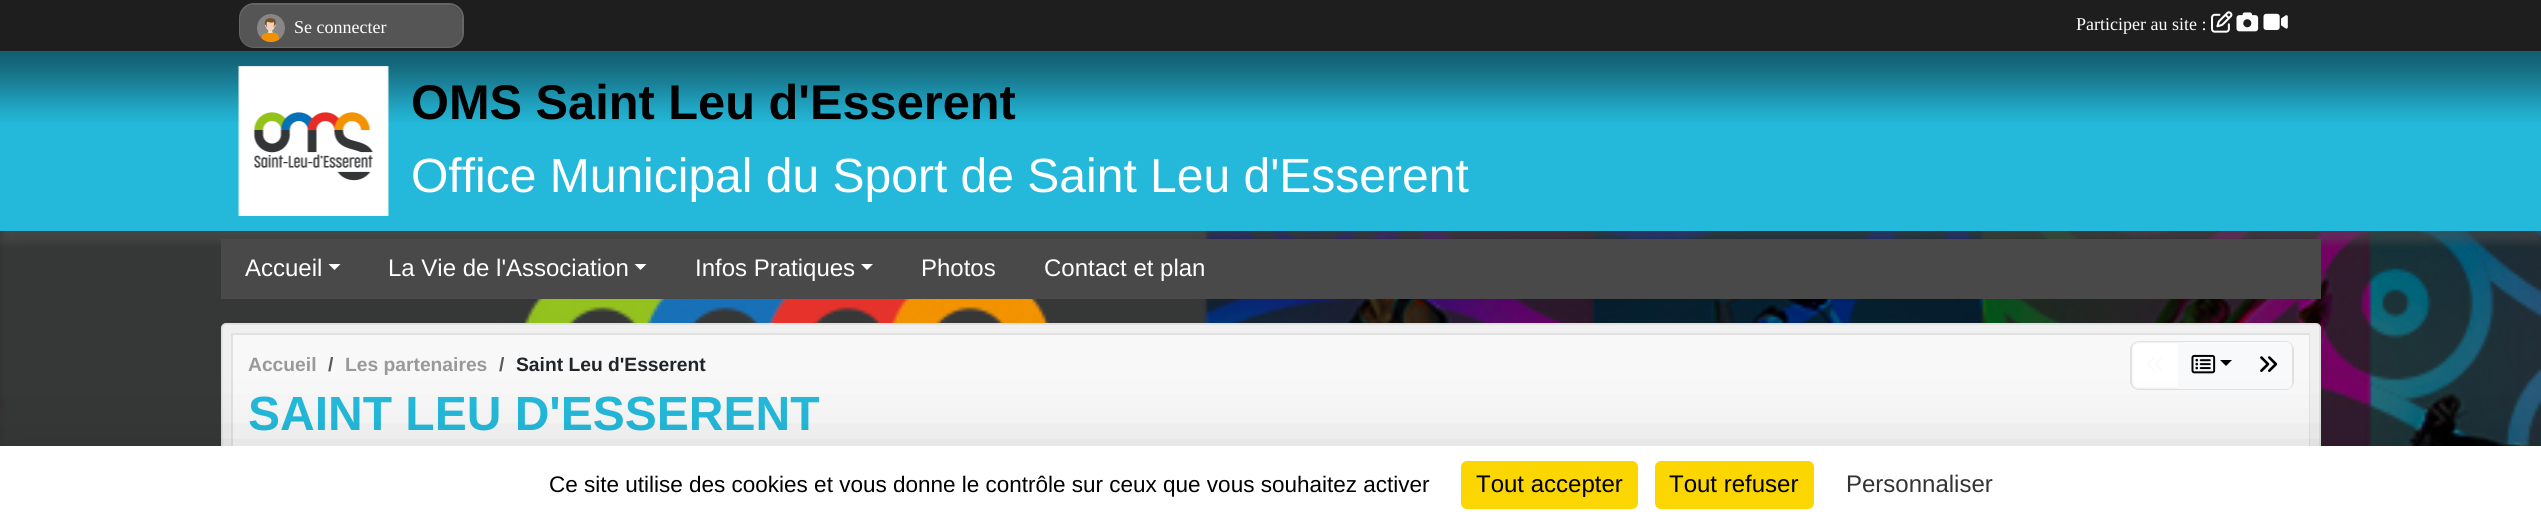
#include <cairo.h>
#include <math.h>
#include <stddef.h>

static cairo_t *ctx;

static void use_color(int r, int g, int b) {
    cairo_set_source_rgb(ctx, r / 255.0, g / 255.0, b / 255.0);
}

static void round_rect(double x, double y, double w, double h, double r) {
    cairo_new_sub_path(ctx);
    cairo_arc(ctx, x + w - r, y + h - r, r, 0, M_PI / 2);
    cairo_arc(ctx, x + r, y + h - r, r, M_PI / 2, M_PI);
    cairo_arc(ctx, x + r, y + r, r, M_PI, 1.5 * M_PI);
    cairo_arc(ctx, x + w - r, y + r, r, 1.5 * M_PI, 2 * M_PI);
    cairo_close_path(ctx);
}

static void shadow(double x, double y, double w, double h, double r, double blur, double alpha) {
    cairo_push_group_with_content(ctx, CAIRO_CONTENT_ALPHA);
    cairo_set_operator(ctx, CAIRO_OPERATOR_SOURCE);
    for (int i = 15; i >= -15 && fmin(w, h) + blur * i / 3 > 0; i -= 2) {
        double e = blur * i / 6;
        cairo_set_source_rgba(ctx, 0, 0, 0, alpha * erfc((i - 1) / 8.5) / 2);
        round_rect(x - e, y - e, w + 2 * e, h + 2 * e, fmax(0, fmin(r + e + blur * .6, fmin(w, h) / 2 + e)));
        cairo_fill(ctx);
    }
    cairo_pattern_t *soft = cairo_pop_group(ctx);
    cairo_mask(ctx, soft);
    cairo_pattern_destroy(soft);
}

static void picture(const char *path, double x, double y, double w, double h) {
    cairo_surface_t *image = cairo_image_surface_create_from_png(path);
    cairo_save(ctx);
    cairo_set_source_surface(ctx, image, x, y);
    cairo_rectangle(ctx, x, y, w, h);
    cairo_fill(ctx);
    cairo_restore(ctx);
    cairo_surface_destroy(image);
}

int main(void) {
    cairo_surface_t *surface = cairo_image_surface_create(CAIRO_FORMAT_RGB24, 2541, 523);
    ctx = cairo_create(surface);
    cairo_font_options_t *options = cairo_font_options_create();
    cairo_font_options_set_hint_metrics(options, CAIRO_HINT_METRICS_OFF);
    cairo_font_options_set_hint_style(options, CAIRO_HINT_STYLE_NONE);
    cairo_set_font_options(ctx, options);
    cairo_set_miter_limit(ctx, 4);
    use_color(255, 255, 255);
    cairo_paint(ctx);
    picture("img1.png", 0, 231, 2541, 215);
    use_color(80, 80, 80);
    shadow(0, 62, 2541, 180, 0, 4, 0.5);
    use_color(30, 30, 30);
    cairo_rectangle(ctx, 0, 0, 2541, 51);
    cairo_fill(ctx);
    use_color(51, 51, 51);
    round_rect(240, 4, 223, 43, 14);
    cairo_fill_preserve(ctx);
    use_color(102, 102, 102);
    cairo_stroke(ctx);
    use_color(85, 85, 85);
    round_rect(240, 5, 222, 42, 14);
    cairo_fill(ctx);
    picture("img2.png", 257, 14, 28, 28);
    cairo_select_font_face(ctx, "Liberation Serif", CAIRO_FONT_SLANT_NORMAL, CAIRO_FONT_WEIGHT_NORMAL);
    cairo_set_font_size(ctx, 18);
    use_color(255, 255, 255);
    cairo_move_to(ctx, 294, 33);
    cairo_show_text(ctx, "Se connecter");
    cairo_move_to(ctx, 2076, 30);
    cairo_show_text(ctx, "Participer au site :");
    picture("img3.png", 2211, 11, 22, 22);
    picture("img4.png", 2236, 12, 23, 20);
    picture("img5.png", 2263, 13, 25, 17);
    use_color(36, 185, 218);
    cairo_rectangle(ctx, 0, 51, 2541, 180);
    cairo_fill(ctx);
    picture("img6.png", 0, 51, 2541, 71);
    picture("img7.png", 238, 66, 151, 150);
    cairo_select_font_face(ctx, "Liberation Sans", CAIRO_FONT_SLANT_NORMAL, CAIRO_FONT_WEIGHT_BOLD);
    cairo_set_font_size(ctx, 48.75);
    use_color(0, 0, 0);
    cairo_move_to(ctx, 411, 119);
    cairo_show_text(ctx, "OMS Saint Leu d'Esserent");
    cairo_select_font_face(ctx, "Liberation Sans", CAIRO_FONT_SLANT_NORMAL, CAIRO_FONT_WEIGHT_NORMAL);
    cairo_set_font_size(ctx, 48);
    use_color(255, 255, 255);
    cairo_move_to(ctx, 411, 192);
    cairo_show_text(ctx, "Office Municipal du Sport de Saint Leu d'Esserent");
    use_color(73, 73, 73);
    cairo_rectangle(ctx, 221, 239, 2100, 60);
    cairo_fill(ctx);
    cairo_set_font_size(ctx, 24);
    use_color(255, 255, 255);
    cairo_move_to(ctx, 245, 276);
    cairo_show_text(ctx, "Accueil");
    cairo_new_path(ctx);
    cairo_move_to(ctx, 328.5, 264);
    cairo_line_to(ctx, 340.5, 264);
    cairo_line_to(ctx, 334.5, 270);
    cairo_close_path(ctx);
    cairo_fill(ctx);
    cairo_move_to(ctx, 388, 276);
    cairo_show_text(ctx, "La Vie de l'Association");
    cairo_new_path(ctx);
    cairo_move_to(ctx, 634.5, 264);
    cairo_line_to(ctx, 646.5, 264);
    cairo_line_to(ctx, 640.5, 270);
    cairo_close_path(ctx);
    cairo_fill(ctx);
    cairo_move_to(ctx, 695, 276);
    cairo_show_text(ctx, "Infos Pratiques");
    cairo_new_path(ctx);
    cairo_move_to(ctx, 861, 264);
    cairo_line_to(ctx, 873, 264);
    cairo_line_to(ctx, 867, 270);
    cairo_close_path(ctx);
    cairo_fill(ctx);
    cairo_move_to(ctx, 921, 276);
    cairo_show_text(ctx, "Photos");
    cairo_move_to(ctx, 1044, 276);
    cairo_show_text(ctx, "Contact et plan");
    use_color(240, 240, 240);
    round_rect(222, 324, 2098, 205, 4);
    cairo_fill_preserve(ctx);
    use_color(225, 225, 225);
    cairo_stroke(ctx);
    cairo_rectangle(ctx, 232, 334, 2077, 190);
    cairo_stroke(ctx);
    use_color(248, 248, 248);
    cairo_rectangle(ctx, 233, 335, 2076, 111);
    cairo_fill(ctx);
    cairo_select_font_face(ctx, "Liberation Sans", CAIRO_FONT_SLANT_NORMAL, CAIRO_FONT_WEIGHT_BOLD);
    cairo_set_font_size(ctx, 19.25);
    use_color(153, 153, 153);
    cairo_move_to(ctx, 248, 371);
    cairo_show_text(ctx, "Accueil");
    use_color(87, 90, 93);
    cairo_move_to(ctx, 328, 371);
    cairo_show_text(ctx, "/");
    use_color(153, 153, 153);
    cairo_move_to(ctx, 345, 371);
    cairo_show_text(ctx, "Les partenaires");
    use_color(87, 90, 93);
    cairo_move_to(ctx, 499, 371);
    cairo_show_text(ctx, "/");
    use_color(33, 37, 41);
    cairo_move_to(ctx, 516, 371);
    cairo_show_text(ctx, "Saint Leu d'Esserent");
    use_color(255, 255, 255);
    round_rect(2131, 342, 162, 47, 8);
    cairo_fill_preserve(ctx);
    use_color(225, 225, 225);
    cairo_stroke(ctx);
    cairo_new_path(ctx);
    cairo_move_to(ctx, 2138, 343);
    cairo_line_to(ctx, 2179, 343);
    cairo_line_to(ctx, 2179, 388);
    cairo_line_to(ctx, 2138, 388);
    cairo_curve_to(ctx, 2135, 388, 2133, 386, 2133, 383);
    cairo_line_to(ctx, 2133, 348);
    cairo_curve_to(ctx, 2133, 345, 2135, 343, 2138, 343);
    cairo_close_path(ctx);
    cairo_set_source_rgba(ctx, 0.973, 0.976, 0.98, 0.65);
    cairo_stroke(ctx);
    picture("img8.png", 2147, 357, 16, 15);
    use_color(248, 249, 250);
    cairo_rectangle(ctx, 2178, 342, 66, 47);
    cairo_fill(ctx);
    picture("img9.png", 2191, 354, 25, 20);
    use_color(0, 0, 0);
    cairo_new_path(ctx);
    cairo_move_to(ctx, 2220, 360);
    cairo_line_to(ctx, 2232, 360);
    cairo_line_to(ctx, 2226, 366);
    cairo_close_path(ctx);
    cairo_fill(ctx);
    use_color(248, 249, 250);
    cairo_new_path(ctx);
    cairo_move_to(ctx, 2245, 343);
    cairo_line_to(ctx, 2286, 343);
    cairo_curve_to(ctx, 2289, 343, 2291, 345, 2291, 348);
    cairo_line_to(ctx, 2291, 383);
    cairo_curve_to(ctx, 2291, 386, 2289, 388, 2286, 388);
    cairo_line_to(ctx, 2245, 388);
    cairo_close_path(ctx);
    cairo_fill_preserve(ctx);
    cairo_stroke(ctx);
    picture("img10.png", 2260, 356, 18, 16);
    cairo_set_font_size(ctx, 48);
    use_color(36, 185, 218);
    cairo_move_to(ctx, 248, 430);
    cairo_show_text(ctx, "SAINT LEU D'ESSERENT");
    use_color(0, 0, 0);
    shadow(0, 476, 2541, 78, 0, 45, 0.25);
    use_color(255, 255, 255);
    cairo_rectangle(ctx, 0, 446, 2541, 77);
    cairo_fill(ctx);
    cairo_select_font_face(ctx, "Liberation Sans", CAIRO_FONT_SLANT_NORMAL, CAIRO_FONT_WEIGHT_NORMAL);
    cairo_set_font_size(ctx, 22.5);
    use_color(0, 0, 0);
    cairo_move_to(ctx, 549, 492);
    cairo_show_text(ctx, "Ce site utilise des cookies et vous donne le contrôle sur ceux que vous souhaitez activer");
    use_color(251, 214, 0);
    round_rect(1461, 461, 177, 48, 6);
    cairo_fill(ctx);
    cairo_set_font_size(ctx, 24);
    use_color(0, 0, 0);
    cairo_move_to(ctx, 1476, 492);
    cairo_show_text(ctx, "Tout accepter");
    use_color(251, 214, 0);
    round_rect(1655, 461, 159, 48, 6);
    cairo_fill(ctx);
    use_color(0, 0, 0);
    cairo_move_to(ctx, 1669, 492);
    cairo_show_text(ctx, "Tout refuser");
    use_color(51, 51, 51);
    cairo_move_to(ctx, 1846, 492);
    cairo_show_text(ctx, "Personnaliser");
    cairo_surface_write_to_png(surface, "result.png");
    cairo_font_options_destroy(options);
    cairo_destroy(ctx);
    cairo_surface_destroy(surface);
    return 0;
}
